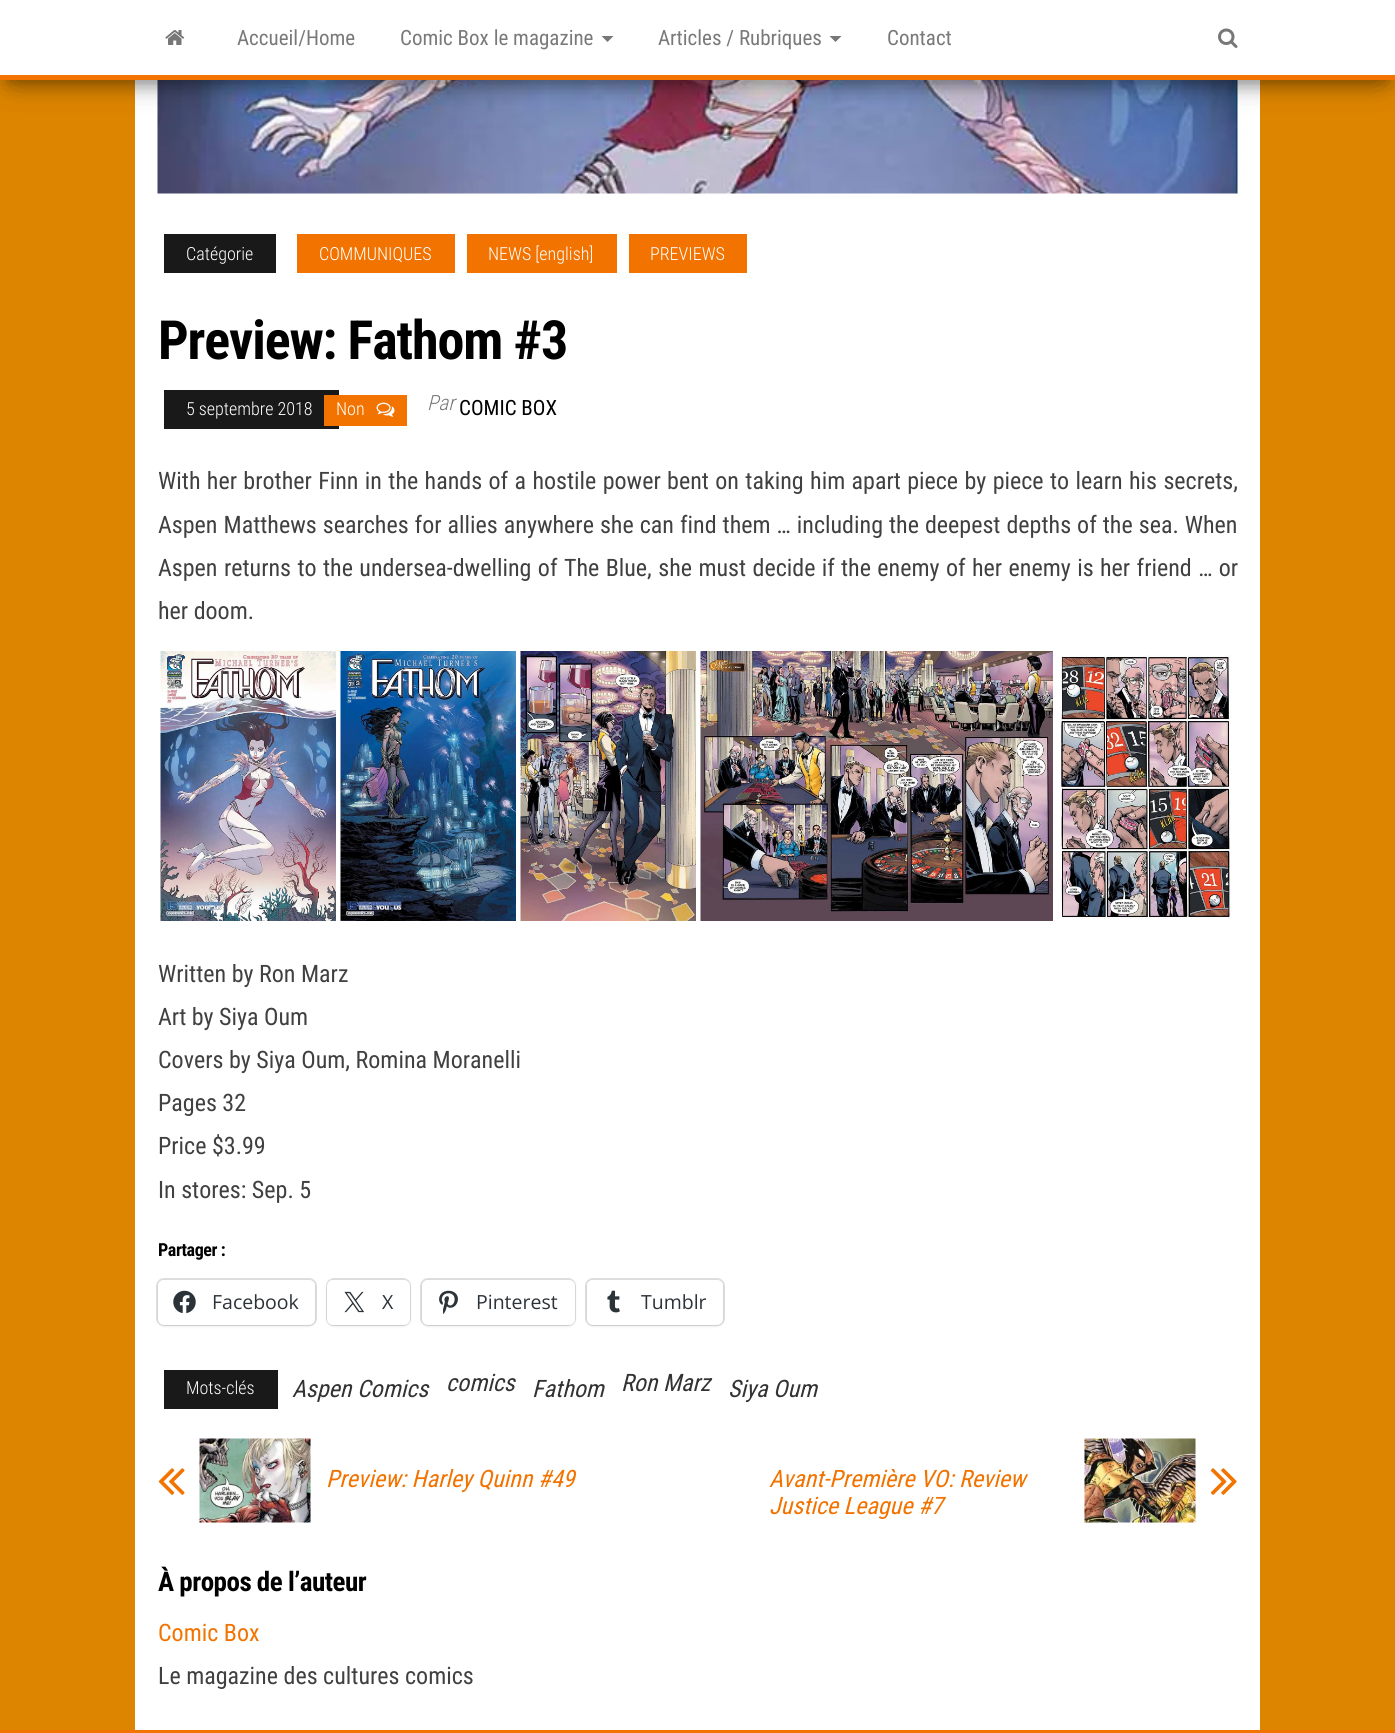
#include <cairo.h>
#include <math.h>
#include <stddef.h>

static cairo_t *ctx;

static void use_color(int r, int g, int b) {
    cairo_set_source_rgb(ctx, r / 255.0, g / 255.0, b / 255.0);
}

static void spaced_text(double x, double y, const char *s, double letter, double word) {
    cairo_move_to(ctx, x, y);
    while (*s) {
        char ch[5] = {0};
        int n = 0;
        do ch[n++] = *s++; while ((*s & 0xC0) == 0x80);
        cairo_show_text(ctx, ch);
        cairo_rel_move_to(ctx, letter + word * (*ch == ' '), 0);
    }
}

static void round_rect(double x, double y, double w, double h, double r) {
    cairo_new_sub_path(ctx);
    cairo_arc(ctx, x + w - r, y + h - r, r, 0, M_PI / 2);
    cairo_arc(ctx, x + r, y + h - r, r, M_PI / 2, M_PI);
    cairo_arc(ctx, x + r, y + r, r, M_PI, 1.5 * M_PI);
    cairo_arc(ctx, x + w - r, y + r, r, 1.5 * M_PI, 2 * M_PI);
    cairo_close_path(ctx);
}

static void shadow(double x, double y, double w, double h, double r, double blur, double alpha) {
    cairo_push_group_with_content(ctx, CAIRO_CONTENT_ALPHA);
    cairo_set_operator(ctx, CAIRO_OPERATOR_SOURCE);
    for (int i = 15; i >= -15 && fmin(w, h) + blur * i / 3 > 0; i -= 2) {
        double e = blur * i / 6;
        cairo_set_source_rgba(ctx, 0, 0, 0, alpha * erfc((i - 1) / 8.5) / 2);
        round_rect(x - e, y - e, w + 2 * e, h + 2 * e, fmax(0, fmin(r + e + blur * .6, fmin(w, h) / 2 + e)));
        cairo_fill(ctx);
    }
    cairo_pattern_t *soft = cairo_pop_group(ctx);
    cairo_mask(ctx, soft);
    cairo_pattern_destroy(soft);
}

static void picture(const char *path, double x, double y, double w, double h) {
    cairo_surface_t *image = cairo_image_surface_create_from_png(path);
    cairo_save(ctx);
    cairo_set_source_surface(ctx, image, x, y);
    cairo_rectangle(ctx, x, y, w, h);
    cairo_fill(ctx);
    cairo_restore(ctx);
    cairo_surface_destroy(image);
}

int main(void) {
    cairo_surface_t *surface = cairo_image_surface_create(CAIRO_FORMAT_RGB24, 1395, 1733);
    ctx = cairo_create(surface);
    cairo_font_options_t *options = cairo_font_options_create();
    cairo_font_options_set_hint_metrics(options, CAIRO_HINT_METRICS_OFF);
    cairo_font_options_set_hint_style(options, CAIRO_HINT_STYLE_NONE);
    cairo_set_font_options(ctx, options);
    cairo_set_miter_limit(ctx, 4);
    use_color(221, 133, 0);
    cairo_paint(ctx);
    use_color(255, 255, 255);
    cairo_rectangle(ctx, 135, 80, 1125, 1650);
    cairo_fill(ctx);
    picture("img3.png", 157, 80, 1081, 114);
    use_color(0, 0, 0);
    shadow(8, 20, 1380, 64, 0, 7.5, 0.2);
    shadow(0, 5, 1395, 79, 0, 15, 0.12);
    shadow(18, 33, 1359, 44, 0, 15, 0.42);
    use_color(255, 255, 255);
    cairo_rectangle(ctx, 0, 0, 1395, 75);
    cairo_fill(ctx);
    use_color(242, 115, 0);
    cairo_rectangle(ctx, 0, 75, 1395, 5);
    cairo_fill(ctx);
    picture("img1.png", 165, 30, 20, 15);
    cairo_select_font_face(ctx, "Roboto Condensed", CAIRO_FONT_SLANT_NORMAL, CAIRO_FONT_WEIGHT_NORMAL);
    cairo_set_font_size(ctx, 21);
    use_color(121, 121, 121);
    cairo_move_to(ctx, 237, 45);
    cairo_show_text(ctx, "Accueil/Home");
    cairo_move_to(ctx, 400, 45);
    cairo_show_text(ctx, "Comic Box le magazine");
    use_color(119, 119, 119);
    cairo_new_path(ctx);
    cairo_move_to(ctx, 601.5, 36);
    cairo_line_to(ctx, 613.5, 36);
    cairo_line_to(ctx, 607.5, 42);
    cairo_close_path(ctx);
    cairo_fill(ctx);
    use_color(121, 121, 121);
    cairo_move_to(ctx, 658, 45);
    cairo_show_text(ctx, "Articles / Rubriques");
    use_color(119, 119, 119);
    cairo_new_path(ctx);
    cairo_move_to(ctx, 829.5, 36);
    cairo_line_to(ctx, 841.5, 36);
    cairo_line_to(ctx, 835.5, 42);
    cairo_close_path(ctx);
    cairo_fill(ctx);
    use_color(121, 121, 121);
    cairo_move_to(ctx, 887, 45);
    cairo_show_text(ctx, "Contact");
    picture("img2.png", 1218, 28, 20, 20);
    use_color(25, 25, 25);
    cairo_rectangle(ctx, 164, 234, 112, 39);
    cairo_fill(ctx);
    cairo_select_font_face(ctx, "Roboto Condensed Light", CAIRO_FONT_SLANT_NORMAL, CAIRO_FONT_WEIGHT_NORMAL);
    cairo_set_font_size(ctx, 18);
    use_color(255, 255, 255);
    cairo_move_to(ctx, 186, 260);
    cairo_show_text(ctx, "Catégorie");
    use_color(242, 115, 0);
    cairo_rectangle(ctx, 297, 234, 158, 39);
    cairo_fill(ctx);
    use_color(255, 255, 255);
    cairo_move_to(ctx, 319, 260);
    cairo_show_text(ctx, "COMMUNIQUES");
    use_color(242, 115, 0);
    cairo_rectangle(ctx, 467, 234, 150, 39);
    cairo_fill(ctx);
    use_color(255, 255, 255);
    cairo_move_to(ctx, 488, 260);
    cairo_show_text(ctx, "NEWS [english]");
    use_color(242, 115, 0);
    cairo_rectangle(ctx, 629, 234, 118, 39);
    cairo_fill(ctx);
    use_color(255, 255, 255);
    cairo_move_to(ctx, 650, 260);
    cairo_show_text(ctx, "PREVIEWS");
    cairo_select_font_face(ctx, "Roboto Condensed", CAIRO_FONT_SLANT_NORMAL, CAIRO_FONT_WEIGHT_BOLD);
    cairo_set_font_size(ctx, 54);
    use_color(0, 0, 0);
    spaced_text(158, 359, "Preview: Fathom #3", -1.1, 0);
    use_color(25, 25, 25);
    cairo_rectangle(ctx, 164, 390, 175, 39);
    cairo_fill(ctx);
    cairo_select_font_face(ctx, "Roboto Condensed Light", CAIRO_FONT_SLANT_NORMAL, CAIRO_FONT_WEIGHT_NORMAL);
    cairo_set_font_size(ctx, 18);
    use_color(255, 255, 255);
    cairo_move_to(ctx, 186, 415);
    cairo_show_text(ctx, "5 septembre 2018");
    use_color(242, 115, 0);
    cairo_rectangle(ctx, 324, 395, 83, 31);
    cairo_fill(ctx);
    use_color(255, 255, 255);
    cairo_move_to(ctx, 336, 415);
    cairo_show_text(ctx, "Non");
    picture("img4.png", 376, 402, 19, 15);
    cairo_select_font_face(ctx, "Roboto Condensed Light", CAIRO_FONT_SLANT_ITALIC, CAIRO_FONT_WEIGHT_NORMAL);
    cairo_set_font_size(ctx, 21);
    use_color(121, 121, 121);
    cairo_move_to(ctx, 427, 410);
    cairo_show_text(ctx, "Par");
    cairo_select_font_face(ctx, "Roboto Condensed", CAIRO_FONT_SLANT_NORMAL, CAIRO_FONT_WEIGHT_NORMAL);
    use_color(0, 0, 0);
    cairo_move_to(ctx, 459, 415);
    cairo_show_text(ctx, "COMIC BOX");
    cairo_set_font_size(ctx, 24);
    use_color(64, 64, 64);
    spaced_text(158, 489, "With her brother Finn in the hands of a hostile power bent on taking him apart piece by piece to learn his secrets,", 0, 0.85);
    spaced_text(158, 533, "Aspen Matthews searches for allies anywhere she can find them … including the deepest depths of the sea. When", 0, 0.5);
    spaced_text(158, 576, "Aspen returns to the undersea-dwelling of The Blue, she must decide if", 0, 0.9);
    spaced_text(841, 576, "the enemy of her enemy is her friend … or", 0, 0.9);
    cairo_move_to(ctx, 158, 619);
    cairo_show_text(ctx, "her doom.");
    picture("img5.png", 160, 651, 176, 270);
    picture("img6.png", 340, 651, 176, 270);
    picture("img7.png", 520, 651, 176, 270);
    picture("img8.png", 700, 651, 353, 270);
    picture("img9.png", 1060, 655, 171, 264);
    cairo_move_to(ctx, 158, 982);
    cairo_show_text(ctx, "Written by Ron Marz");
    cairo_move_to(ctx, 158, 1025);
    cairo_show_text(ctx, "Art by Siya Oum");
    cairo_move_to(ctx, 158, 1068);
    cairo_show_text(ctx, "Covers by Siya Oum, Romina Moranelli");
    cairo_move_to(ctx, 158, 1111);
    cairo_show_text(ctx, "Pages 32");
    cairo_move_to(ctx, 158, 1154);
    cairo_show_text(ctx, "Price $3.99");
    cairo_move_to(ctx, 158, 1198);
    cairo_show_text(ctx, "In stores: Sep. 5");
    cairo_select_font_face(ctx, "Roboto Condensed", CAIRO_FONT_SLANT_NORMAL, CAIRO_FONT_WEIGHT_BOLD);
    cairo_set_font_size(ctx, 18);
    use_color(0, 0, 0);
    spaced_text(158, 1256, "Partager :", -0.4, 0);
    round_rect(157, 1279, 159, 46, 7);
    use_color(224, 224, 224);
    cairo_stroke(ctx);
    use_color(0, 0, 0);
    shadow(158, 1281, 157, 45, 6, 1.5, 0.12);
    use_color(255, 255, 255);
    round_rect(158, 1280, 157, 45, 6);
    cairo_fill(ctx);
    picture("img10.png", 173, 1290, 23, 24);
    cairo_select_font_face(ctx, "Open Sans", CAIRO_FONT_SLANT_NORMAL, CAIRO_FONT_WEIGHT_NORMAL);
    cairo_set_font_size(ctx, 19.5);
    use_color(44, 51, 56);
    cairo_move_to(ctx, 212, 1309);
    cairo_show_text(ctx, "Facebook");
    round_rect(327, 1279, 83, 46, 7);
    use_color(224, 224, 224);
    cairo_stroke(ctx);
    use_color(0, 0, 0);
    shadow(327, 1281, 83, 45, 6, 1.5, 0.12);
    use_color(255, 255, 255);
    round_rect(327, 1280, 83, 45, 6);
    cairo_fill(ctx);
    picture("img11.png", 344, 1291, 21, 22);
    use_color(44, 51, 56);
    cairo_move_to(ctx, 382, 1309);
    cairo_show_text(ctx, "X");
    round_rect(421, 1279, 154, 46, 7);
    use_color(224, 224, 224);
    cairo_stroke(ctx);
    use_color(0, 0, 0);
    shadow(422, 1281, 153, 45, 6, 1.5, 0.12);
    use_color(255, 255, 255);
    round_rect(422, 1280, 153, 45, 6);
    cairo_fill(ctx);
    picture("img12.png", 439, 1290, 19, 24);
    use_color(44, 51, 56);
    cairo_move_to(ctx, 476, 1309);
    cairo_show_text(ctx, "Pinterest");
    round_rect(586, 1279, 138, 46, 7);
    use_color(224, 224, 224);
    cairo_stroke(ctx);
    use_color(0, 0, 0);
    shadow(587, 1281, 136, 45, 6, 1.5, 0.12);
    use_color(255, 255, 255);
    round_rect(587, 1280, 136, 45, 6);
    cairo_fill(ctx);
    picture("img13.png", 607, 1290, 13, 23);
    use_color(44, 51, 56);
    cairo_move_to(ctx, 641, 1309);
    cairo_show_text(ctx, "Tumblr");
    use_color(25, 25, 25);
    cairo_rectangle(ctx, 164, 1370, 114, 39);
    cairo_fill(ctx);
    cairo_select_font_face(ctx, "Roboto Condensed Light", CAIRO_FONT_SLANT_NORMAL, CAIRO_FONT_WEIGHT_NORMAL);
    cairo_set_font_size(ctx, 18);
    use_color(255, 255, 255);
    cairo_move_to(ctx, 186, 1394);
    cairo_show_text(ctx, "Mots-clés");
    cairo_select_font_face(ctx, "Roboto Condensed", CAIRO_FONT_SLANT_ITALIC, CAIRO_FONT_WEIGHT_NORMAL);
    cairo_set_font_size(ctx, 24);
    use_color(51, 51, 51);
    cairo_move_to(ctx, 292, 1397);
    cairo_show_text(ctx, "Aspen Comics");
    cairo_move_to(ctx, 446, 1391);
    cairo_show_text(ctx, "comics");
    cairo_move_to(ctx, 532, 1397);
    cairo_show_text(ctx, "Fathom");
    cairo_move_to(ctx, 621, 1391);
    cairo_show_text(ctx, "Ron Marz");
    cairo_move_to(ctx, 728, 1397);
    cairo_show_text(ctx, "Siya Oum");
    picture("img14.png", 158, 1468, 27, 27);
    picture("img15.png", 199, 1438, 112, 85);
    use_color(242, 115, 0);
    cairo_move_to(ctx, 326, 1487);
    cairo_show_text(ctx, "Preview: Harley Quinn #49");
    cairo_move_to(ctx, 769, 1487);
    cairo_show_text(ctx, "Avant-Première VO: Review");
    cairo_move_to(ctx, 769, 1514);
    cairo_show_text(ctx, "Justice League #7");
    picture("img16.png", 1084, 1438, 112, 85);
    picture("img17.png", 1210, 1468, 27, 27);
    cairo_select_font_face(ctx, "Roboto Condensed", CAIRO_FONT_SLANT_NORMAL, CAIRO_FONT_WEIGHT_BOLD);
    cairo_set_font_size(ctx, 27);
    use_color(0, 0, 0);
    spaced_text(158, 1591, "À propos de l’auteur", -0.5, 0);
    cairo_select_font_face(ctx, "Roboto Condensed", CAIRO_FONT_SLANT_NORMAL, CAIRO_FONT_WEIGHT_NORMAL);
    cairo_set_font_size(ctx, 24);
    use_color(242, 115, 0);
    cairo_move_to(ctx, 158, 1641);
    cairo_show_text(ctx, "Comic Box");
    use_color(64, 64, 64);
    cairo_move_to(ctx, 158, 1684);
    cairo_show_text(ctx, "Le magazine des cultures comics");
    use_color(242, 115, 0);
    cairo_rectangle(ctx, 0, 1730, 1395, 3);
    cairo_fill(ctx);
    cairo_surface_write_to_png(surface, "result.png");
    cairo_font_options_destroy(options);
    cairo_destroy(ctx);
    cairo_surface_destroy(surface);
    return 0;
}
